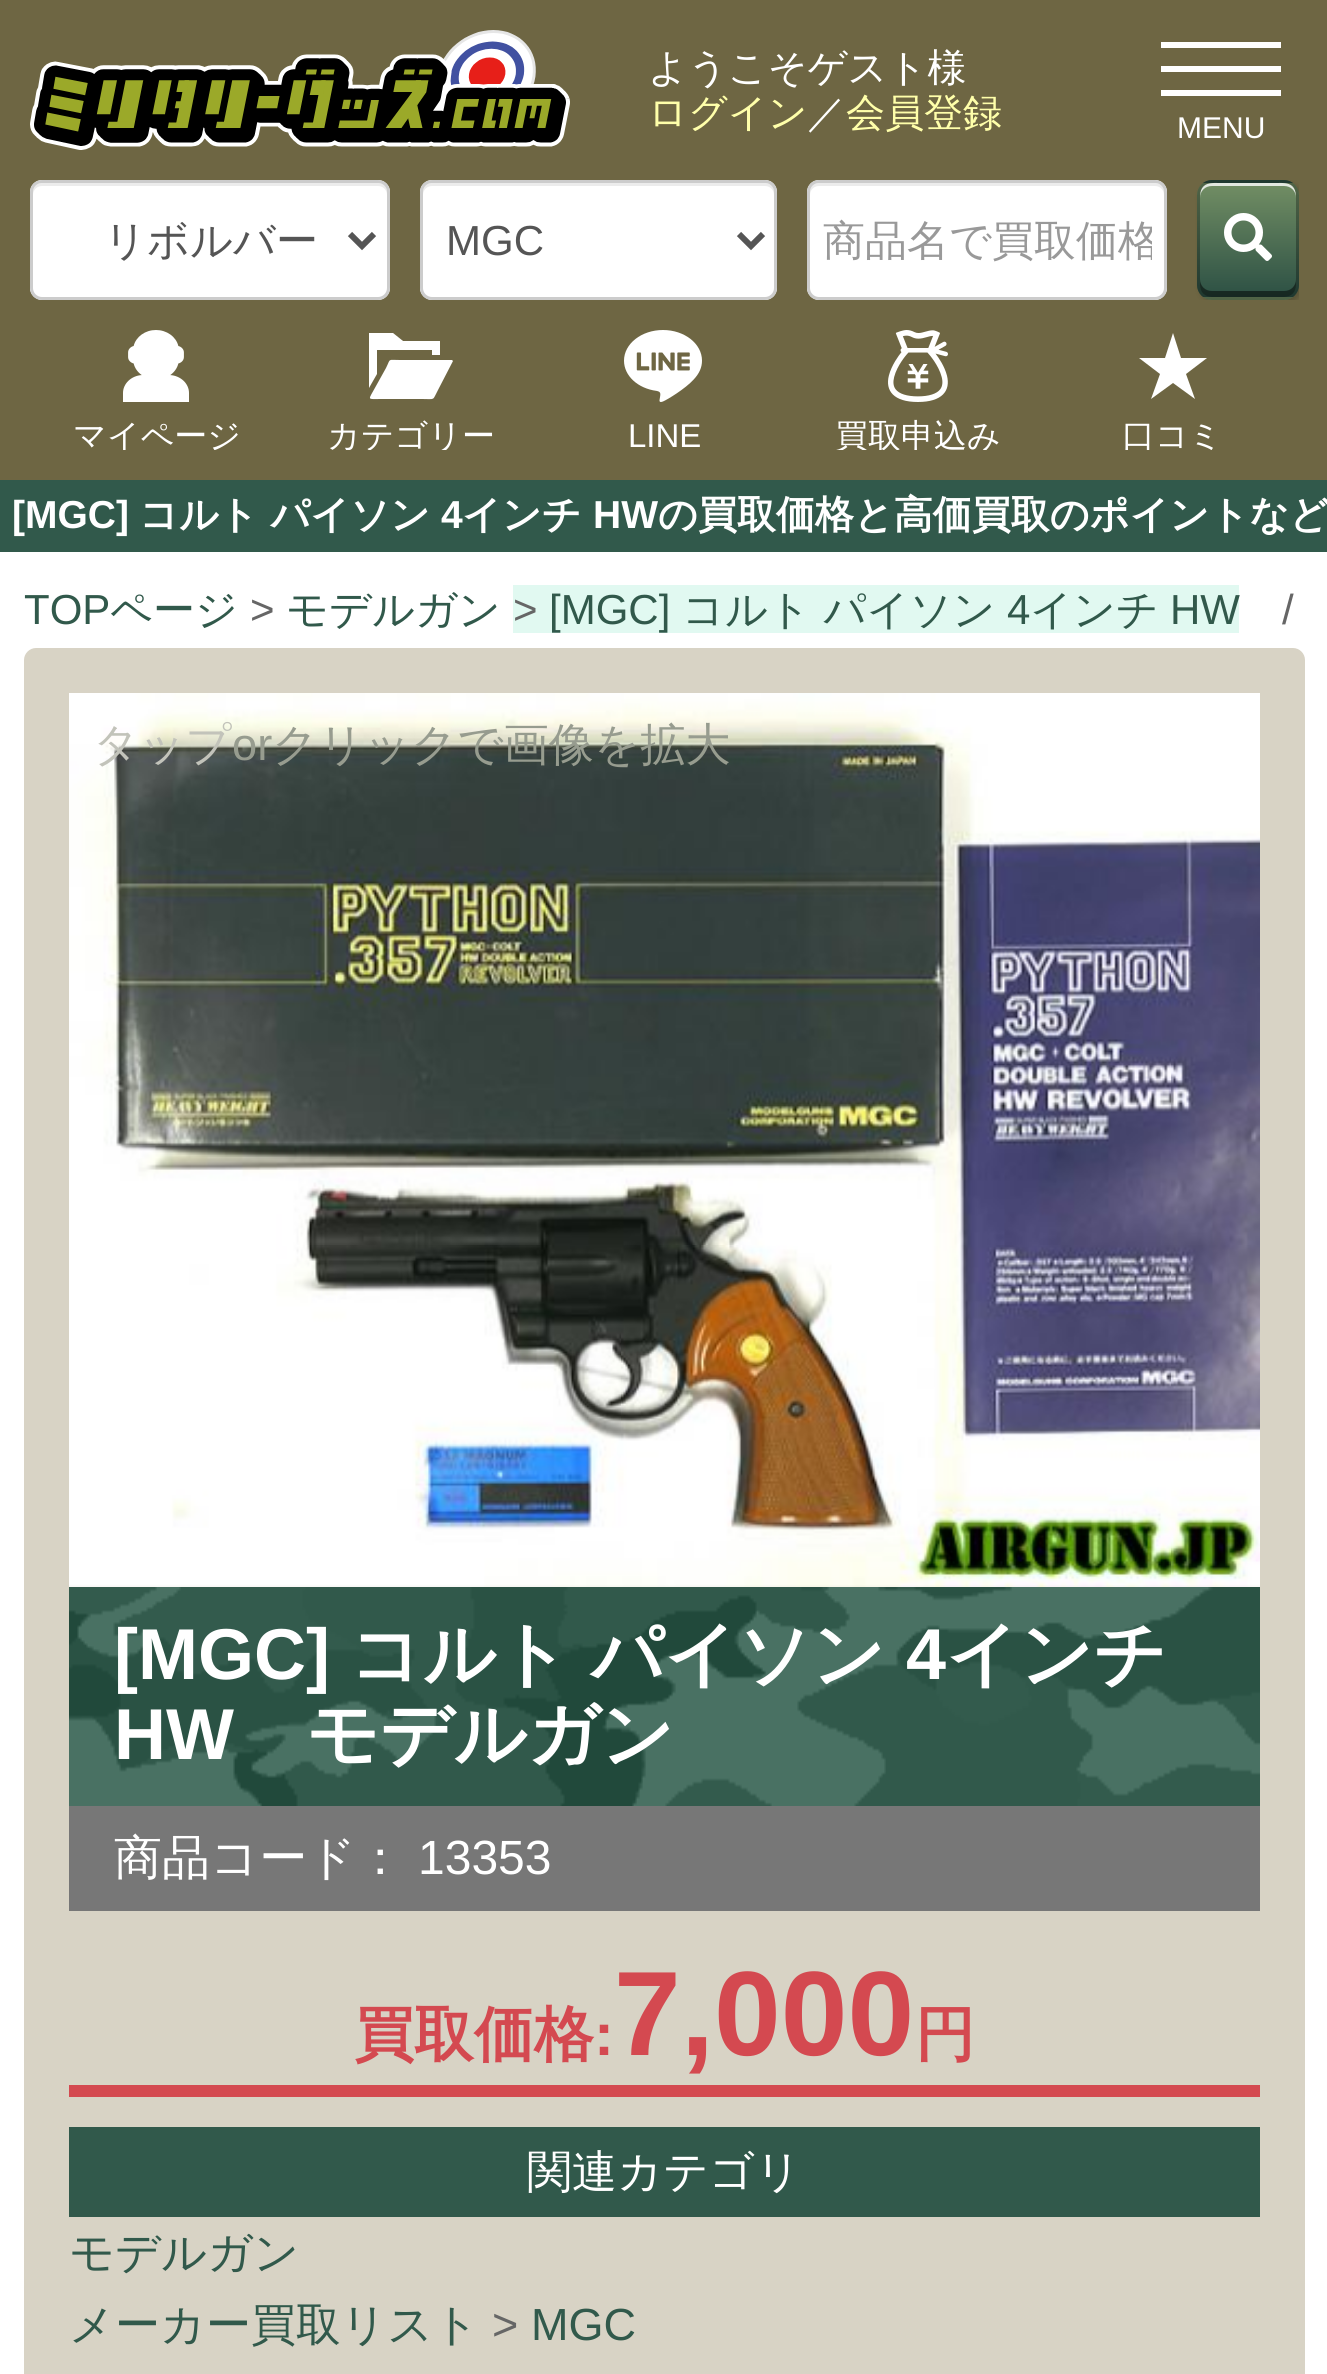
#include <cairo.h>
#include <math.h>
#include <stddef.h>

static cairo_t *ctx;

static void use_color(int r, int g, int b) {
    cairo_set_source_rgb(ctx, r / 255.0, g / 255.0, b / 255.0);
}

static void spaced_text(double x, double y, const char *s, double letter, double word) {
    cairo_move_to(ctx, x, y);
    while (*s) {
        char ch[5] = {0};
        int n = 0;
        do ch[n++] = *s++; while ((*s & 0xC0) == 0x80);
        cairo_show_text(ctx, ch);
        cairo_rel_move_to(ctx, letter + word * (*ch == ' '), 0);
    }
}

static void round_rect(double x, double y, double w, double h, double r) {
    cairo_new_sub_path(ctx);
    cairo_arc(ctx, x + w - r, y + h - r, r, 0, M_PI / 2);
    cairo_arc(ctx, x + r, y + h - r, r, M_PI / 2, M_PI);
    cairo_arc(ctx, x + r, y + r, r, M_PI, 1.5 * M_PI);
    cairo_arc(ctx, x + w - r, y + r, r, 1.5 * M_PI, 2 * M_PI);
    cairo_close_path(ctx);
}

static void shadow(double x, double y, double w, double h, double r, double blur, double alpha) {
    cairo_push_group_with_content(ctx, CAIRO_CONTENT_ALPHA);
    cairo_set_operator(ctx, CAIRO_OPERATOR_SOURCE);
    for (int i = 15; i >= -15 && fmin(w, h) + blur * i / 3 > 0; i -= 2) {
        double e = blur * i / 6;
        cairo_set_source_rgba(ctx, 0, 0, 0, alpha * erfc((i - 1) / 8.5) / 2);
        round_rect(x - e, y - e, w + 2 * e, h + 2 * e, fmax(0, fmin(r + e + blur * .6, fmin(w, h) / 2 + e)));
        cairo_fill(ctx);
    }
    cairo_pattern_t *soft = cairo_pop_group(ctx);
    cairo_mask(ctx, soft);
    cairo_pattern_destroy(soft);
}

static void picture(const char *path, double x, double y, double w, double h) {
    cairo_surface_t *image = cairo_image_surface_create_from_png(path);
    cairo_save(ctx);
    cairo_set_source_surface(ctx, image, x, y);
    cairo_rectangle(ctx, x, y, w, h);
    cairo_fill(ctx);
    cairo_restore(ctx);
    cairo_surface_destroy(image);
}

int main(void) {
    cairo_surface_t *surface = cairo_image_surface_create(CAIRO_FORMAT_RGB24, 1327, 2374);
    ctx = cairo_create(surface);
    cairo_font_options_t *options = cairo_font_options_create();
    cairo_font_options_set_hint_metrics(options, CAIRO_HINT_METRICS_OFF);
    cairo_font_options_set_hint_style(options, CAIRO_HINT_STYLE_NONE);
    cairo_set_font_options(ctx, options);
    cairo_set_miter_limit(ctx, 4);
    cairo_pattern_t *gradient;
    use_color(255, 255, 255);
    cairo_paint(ctx);
    use_color(110, 102, 67);
    cairo_rectangle(ctx, 0, 0, 1327, 480);
    cairo_fill(ctx);
    picture("img1.png", 30, 30, 540, 120);
    cairo_select_font_face(ctx, "WenQuanYi Zen Hei Medium", CAIRO_FONT_SLANT_NORMAL, CAIRO_FONT_WEIGHT_NORMAL);
    cairo_set_font_size(ctx, 39);
    use_color(255, 255, 255);
    cairo_move_to(ctx, 648, 81);
    cairo_show_text(ctx, "ようこそゲスト様");
    use_color(255, 255, 170);
    cairo_move_to(ctx, 648, 126);
    cairo_show_text(ctx, "ログイン");
    use_color(255, 255, 255);
    cairo_move_to(ctx, 807, 126);
    cairo_show_text(ctx, "／");
    use_color(255, 255, 170);
    cairo_move_to(ctx, 846, 126);
    cairo_show_text(ctx, "会員登録");
    use_color(255, 255, 255);
    round_rect(30, 180, 360, 120, 12);
    cairo_fill(ctx);
    use_color(236, 236, 236);
    cairo_new_path(ctx);
    cairo_move_to(ctx, 42, 186);
    cairo_line_to(ctx, 378, 186);
    cairo_curve_to(ctx, 383, 186, 387, 190, 387, 195);
    cairo_line_to(ctx, 387, 192);
    cairo_curve_to(ctx, 387, 187, 383, 183, 378, 183);
    cairo_line_to(ctx, 42, 183);
    cairo_curve_to(ctx, 37, 183, 33, 187, 33, 192);
    cairo_line_to(ctx, 33, 195);
    cairo_curve_to(ctx, 33, 190, 37, 186, 42, 186);
    cairo_close_path(ctx);
    cairo_fill(ctx);
    round_rect(31.5, 181.5, 357, 117, 10.5);
    use_color(204, 204, 204);
    cairo_set_line_width(ctx, 3);
    cairo_stroke(ctx);
    cairo_new_path(ctx);
    cairo_move_to(ctx, 350, 234);
    cairo_line_to(ctx, 362, 246);
    cairo_line_to(ctx, 374, 234);
    use_color(85, 85, 85);
    cairo_set_line_width(ctx, 6);
    cairo_stroke(ctx);
    cairo_set_font_size(ctx, 42);
    cairo_move_to(ctx, 104, 255);
    cairo_show_text(ctx, "リボルバー");
    use_color(255, 255, 255);
    round_rect(420, 180, 357, 120, 12);
    cairo_fill(ctx);
    use_color(236, 236, 236);
    cairo_new_path(ctx);
    cairo_move_to(ctx, 432, 186);
    cairo_line_to(ctx, 765, 186);
    cairo_curve_to(ctx, 770, 186, 774, 190, 774, 195);
    cairo_line_to(ctx, 774, 192);
    cairo_curve_to(ctx, 774, 187, 770, 183, 765, 183);
    cairo_line_to(ctx, 432, 183);
    cairo_curve_to(ctx, 427, 183, 423, 187, 423, 192);
    cairo_line_to(ctx, 423, 195);
    cairo_curve_to(ctx, 423, 190, 427, 186, 432, 186);
    cairo_close_path(ctx);
    cairo_fill(ctx);
    round_rect(421.5, 181.5, 354, 117, 10.5);
    use_color(204, 204, 204);
    cairo_set_line_width(ctx, 3);
    cairo_stroke(ctx);
    cairo_new_path(ctx);
    cairo_move_to(ctx, 739, 234);
    cairo_line_to(ctx, 751, 246);
    cairo_line_to(ctx, 763, 234);
    use_color(85, 85, 85);
    cairo_set_line_width(ctx, 6);
    cairo_stroke(ctx);
    cairo_select_font_face(ctx, "Liberation Sans", CAIRO_FONT_SLANT_NORMAL, CAIRO_FONT_WEIGHT_NORMAL);
    cairo_move_to(ctx, 446, 255);
    cairo_show_text(ctx, "MGC");
    use_color(255, 255, 255);
    round_rect(807, 180, 360, 120, 12);
    cairo_fill(ctx);
    use_color(236, 236, 236);
    cairo_new_path(ctx);
    cairo_move_to(ctx, 819, 186);
    cairo_line_to(ctx, 1155, 186);
    cairo_curve_to(ctx, 1160, 186, 1164, 190, 1164, 195);
    cairo_line_to(ctx, 1164, 192);
    cairo_curve_to(ctx, 1164, 187, 1160, 183, 1155, 183);
    cairo_line_to(ctx, 819, 183);
    cairo_curve_to(ctx, 814, 183, 810, 187, 810, 192);
    cairo_line_to(ctx, 810, 195);
    cairo_curve_to(ctx, 810, 190, 814, 186, 819, 186);
    cairo_close_path(ctx);
    cairo_fill(ctx);
    round_rect(808.5, 181.5, 357, 117, 10.5);
    use_color(204, 204, 204);
    cairo_set_line_width(ctx, 3);
    cairo_stroke(ctx);
    cairo_save(ctx);
    cairo_rectangle(ctx, 822, 216, 330, 54);
    cairo_clip(ctx);
    cairo_select_font_face(ctx, "WenQuanYi Zen Hei Medium", CAIRO_FONT_SLANT_NORMAL, CAIRO_FONT_WEIGHT_NORMAL);
    use_color(153, 153, 153);
    cairo_move_to(ctx, 823, 255);
    cairo_show_text(ctx, "商品名で買取価格");
    cairo_restore(ctx);
    cairo_save(ctx);
    cairo_rectangle(ctx, 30, 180, 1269, 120);
    cairo_clip(ctx);
    use_color(0, 0, 0);
    shadow(1200, 183, 102, 120, 15, 3, 0.2);
    cairo_restore(ctx);
    cairo_save(ctx);
    round_rect(1197, 180, 102, 120, 15);
    cairo_clip(ctx);
    gradient = cairo_pattern_create_linear(1248, 69, 1248, 183);
    cairo_pattern_add_color_stop_rgba(gradient, 0, 0.447, 0.557, 0.392, 1);
    cairo_pattern_add_color_stop_rgba(gradient, 1, 0.173, 0.314, 0.267, 1);
    cairo_set_source(ctx, gradient);
    cairo_pattern_destroy(gradient);
    cairo_rectangle(ctx, 1197, 180, 102, 3);
    cairo_fill(ctx);
    gradient = cairo_pattern_create_linear(1248, 183, 1248, 297);
    cairo_pattern_add_color_stop_rgba(gradient, 0, 0.447, 0.557, 0.392, 1);
    cairo_pattern_add_color_stop_rgba(gradient, 1, 0.173, 0.314, 0.267, 1);
    cairo_set_source(ctx, gradient);
    cairo_pattern_destroy(gradient);
    cairo_rectangle(ctx, 1197, 183, 102, 114);
    cairo_fill(ctx);
    gradient = cairo_pattern_create_linear(1248, 297, 1248, 411);
    cairo_pattern_add_color_stop_rgba(gradient, 0, 0.447, 0.557, 0.392, 1);
    cairo_pattern_add_color_stop_rgba(gradient, 1, 0.173, 0.314, 0.267, 1);
    cairo_set_source(ctx, gradient);
    cairo_pattern_destroy(gradient);
    cairo_rectangle(ctx, 1197, 297, 102, 3);
    cairo_fill(ctx);
    cairo_restore(ctx);
    cairo_set_source_rgba(ctx, 0, 0, 0, 0.5);
    cairo_new_path(ctx);
    cairo_move_to(ctx, 1200, 279);
    cairo_line_to(ctx, 1200, 285);
    cairo_curve_to(ctx, 1200, 292, 1205, 297, 1212, 297);
    cairo_line_to(ctx, 1284, 297);
    cairo_curve_to(ctx, 1291, 297, 1296, 292, 1296, 285);
    cairo_line_to(ctx, 1296, 279);
    cairo_curve_to(ctx, 1296, 286, 1291, 291, 1284, 291);
    cairo_line_to(ctx, 1212, 291);
    cairo_curve_to(ctx, 1205, 291, 1200, 286, 1200, 279);
    cairo_close_path(ctx);
    cairo_fill(ctx);
    cairo_set_source_rgba(ctx, 1, 1, 1, 0.8);
    cairo_new_path(ctx);
    cairo_move_to(ctx, 1212, 186);
    cairo_line_to(ctx, 1284, 186);
    cairo_curve_to(ctx, 1291, 186, 1296, 191, 1296, 198);
    cairo_curve_to(ctx, 1296, 181, 1286, 183, 1272, 183);
    cairo_line_to(ctx, 1224, 183);
    cairo_curve_to(ctx, 1210, 183, 1200, 181, 1200, 198);
    cairo_curve_to(ctx, 1200, 191, 1205, 186, 1212, 186);
    cairo_close_path(ctx);
    cairo_fill(ctx);
    round_rect(1198.5, 181.5, 99, 117, 13.5);
    cairo_set_source_rgba(ctx, 0, 0, 0, 0.3);
    cairo_stroke(ctx);
    picture("img2.png", 1224, 213, 48, 48);
    picture("img3.png", 123, 330, 66, 72);
    cairo_save(ctx);
    cairo_rectangle(ctx, 36, 330, 240, 120);
    cairo_clip(ctx);
    cairo_select_font_face(ctx, "WenQuanYi Zen Hei Medium", CAIRO_FONT_SLANT_NORMAL, CAIRO_FONT_WEIGHT_NORMAL);
    cairo_set_font_size(ctx, 33);
    use_color(255, 255, 255);
    cairo_move_to(ctx, 73, 447);
    cairo_show_text(ctx, "マイページ");
    cairo_restore(ctx);
    use_color(255, 255, 255);
    cairo_new_path(ctx);
    cairo_move_to(ctx, 403, 341);
    cairo_line_to(ctx, 393, 333);
    cairo_line_to(ctx, 369, 333);
    cairo_line_to(ctx, 369, 388);
    cairo_line_to(ctx, 377, 374);
    cairo_line_to(ctx, 377, 350);
    cairo_line_to(ctx, 432, 350);
    cairo_line_to(ctx, 432, 355);
    cairo_line_to(ctx, 440, 355);
    cairo_line_to(ctx, 440, 341);
    cairo_close_path(ctx);
    cairo_fill(ctx);
    cairo_new_path(ctx);
    cairo_move_to(ctx, 453, 361);
    cairo_line_to(ctx, 438, 390);
    cairo_curve_to(ctx, 432, 401, 436, 399, 422, 399);
    cairo_line_to(ctx, 382, 399);
    cairo_curve_to(ctx, 366, 399, 368, 401, 376, 386);
    cairo_line_to(ctx, 386, 368);
    cairo_curve_to(ctx, 391, 358, 387, 360, 400, 360);
    cairo_line_to(ctx, 452, 360);
    cairo_close_path(ctx);
    cairo_fill(ctx);
    cairo_save(ctx);
    cairo_rectangle(ctx, 291, 330, 240, 120);
    cairo_clip(ctx);
    cairo_select_font_face(ctx, "WenQuanYi Zen Hei Medium", CAIRO_FONT_SLANT_NORMAL, CAIRO_FONT_WEIGHT_NORMAL);
    cairo_set_font_size(ctx, 33);
    cairo_move_to(ctx, 327, 447);
    cairo_show_text(ctx, "カテゴリー");
    cairo_restore(ctx);
    picture("img4.png", 624, 330, 78, 72);
    cairo_set_font_size(ctx, 33);
    cairo_move_to(ctx, 628, 447);
    cairo_show_text(ctx, "LINE");
    picture("img5.png", 888, 330, 60, 72);
    cairo_save(ctx);
    cairo_rectangle(ctx, 798, 330, 240, 120);
    cairo_clip(ctx);
    cairo_select_font_face(ctx, "WenQuanYi Zen Hei Medium", CAIRO_FONT_SLANT_NORMAL, CAIRO_FONT_WEIGHT_NORMAL);
    cairo_move_to(ctx, 835, 447);
    cairo_show_text(ctx, "買取申込み");
    cairo_restore(ctx);
    cairo_new_path(ctx);
    cairo_move_to(ctx, 1181, 358);
    cairo_line_to(ctx, 1207, 358);
    cairo_line_to(ctx, 1186, 374);
    cairo_line_to(ctx, 1195, 399);
    cairo_line_to(ctx, 1173, 383);
    cairo_line_to(ctx, 1151, 399);
    cairo_line_to(ctx, 1160, 374);
    cairo_line_to(ctx, 1139, 358);
    cairo_line_to(ctx, 1165, 358);
    cairo_line_to(ctx, 1173, 333);
    cairo_close_path(ctx);
    cairo_fill(ctx);
    cairo_save(ctx);
    cairo_rectangle(ctx, 1053, 330, 240, 120);
    cairo_clip(ctx);
    cairo_select_font_face(ctx, "WenQuanYi Zen Hei Medium", CAIRO_FONT_SLANT_NORMAL, CAIRO_FONT_WEIGHT_NORMAL);
    cairo_move_to(ctx, 1122, 447);
    cairo_show_text(ctx, "口コミ");
    cairo_restore(ctx);
    use_color(49, 89, 75);
    cairo_rectangle(ctx, 0, 480, 1327, 72);
    cairo_fill(ctx);
    cairo_select_font_face(ctx, "Liberation Sans", CAIRO_FONT_SLANT_NORMAL, CAIRO_FONT_WEIGHT_BOLD);
    cairo_set_font_size(ctx, 39);
    use_color(255, 255, 255);
    cairo_move_to(ctx, 12, 528);
    cairo_show_text(ctx, "[MGC]");
    cairo_select_font_face(ctx, "WenQuanYi Zen Hei", CAIRO_FONT_SLANT_NORMAL, CAIRO_FONT_WEIGHT_BOLD);
    cairo_move_to(ctx, 139, 528);
    cairo_show_text(ctx, "コルト パイソン");
    cairo_select_font_face(ctx, "Liberation Sans", CAIRO_FONT_SLANT_NORMAL, CAIRO_FONT_WEIGHT_BOLD);
    cairo_move_to(ctx, 441, 528);
    cairo_show_text(ctx, "4");
    cairo_select_font_face(ctx, "WenQuanYi Zen Hei", CAIRO_FONT_SLANT_NORMAL, CAIRO_FONT_WEIGHT_BOLD);
    cairo_move_to(ctx, 462, 528);
    cairo_show_text(ctx, "インチ");
    cairo_select_font_face(ctx, "Liberation Sans", CAIRO_FONT_SLANT_NORMAL, CAIRO_FONT_WEIGHT_BOLD);
    cairo_move_to(ctx, 593, 528);
    cairo_show_text(ctx, "HW");
    cairo_select_font_face(ctx, "WenQuanYi Zen Hei", CAIRO_FONT_SLANT_NORMAL, CAIRO_FONT_WEIGHT_BOLD);
    cairo_move_to(ctx, 658, 528);
    cairo_show_text(ctx, "の買取価格と高価買取のポイントなど");
    cairo_rectangle(ctx, 1161, 42, 120, 6);
    cairo_fill(ctx);
    cairo_rectangle(ctx, 1161, 66, 120, 6);
    cairo_fill(ctx);
    cairo_rectangle(ctx, 1161, 90, 120, 6);
    cairo_fill(ctx);
    cairo_select_font_face(ctx, "Liberation Sans", CAIRO_FONT_SLANT_NORMAL, CAIRO_FONT_WEIGHT_NORMAL);
    cairo_set_font_size(ctx, 30);
    cairo_move_to(ctx, 1177, 138);
    cairo_show_text(ctx, "MENU");
    cairo_set_font_size(ctx, 42);
    use_color(49, 89, 75);
    cairo_move_to(ctx, 24, 624);
    cairo_show_text(ctx, "TOP");
    cairo_select_font_face(ctx, "WenQuanYi Zen Hei Medium", CAIRO_FONT_SLANT_NORMAL, CAIRO_FONT_WEIGHT_NORMAL);
    cairo_move_to(ctx, 110, 624);
    cairo_show_text(ctx, "ページ");
    cairo_select_font_face(ctx, "Liberation Sans", CAIRO_FONT_SLANT_NORMAL, CAIRO_FONT_WEIGHT_NORMAL);
    use_color(102, 102, 102);
    cairo_move_to(ctx, 250, 624);
    cairo_show_text(ctx, ">");
    cairo_select_font_face(ctx, "WenQuanYi Zen Hei Medium", CAIRO_FONT_SLANT_NORMAL, CAIRO_FONT_WEIGHT_NORMAL);
    use_color(49, 89, 75);
    cairo_move_to(ctx, 286, 624);
    cairo_show_text(ctx, "モデルガン");
    use_color(225, 249, 241);
    cairo_rectangle(ctx, 513, 585, 726, 48);
    cairo_fill(ctx);
    cairo_select_font_face(ctx, "Liberation Sans", CAIRO_FONT_SLANT_NORMAL, CAIRO_FONT_WEIGHT_NORMAL);
    use_color(102, 102, 102);
    cairo_move_to(ctx, 513, 624);
    cairo_show_text(ctx, ">");
    use_color(49, 89, 75);
    cairo_move_to(ctx, 549, 624);
    cairo_show_text(ctx, "[MGC]");
    cairo_select_font_face(ctx, "WenQuanYi Zen Hei Medium", CAIRO_FONT_SLANT_NORMAL, CAIRO_FONT_WEIGHT_NORMAL);
    cairo_move_to(ctx, 682, 624);
    cairo_show_text(ctx, "コルト パイソン");
    cairo_select_font_face(ctx, "Liberation Sans", CAIRO_FONT_SLANT_NORMAL, CAIRO_FONT_WEIGHT_NORMAL);
    cairo_move_to(ctx, 1007, 624);
    cairo_show_text(ctx, "4");
    cairo_select_font_face(ctx, "WenQuanYi Zen Hei Medium", CAIRO_FONT_SLANT_NORMAL, CAIRO_FONT_WEIGHT_NORMAL);
    cairo_move_to(ctx, 1030, 624);
    cairo_show_text(ctx, "インチ");
    cairo_select_font_face(ctx, "Liberation Sans", CAIRO_FONT_SLANT_NORMAL, CAIRO_FONT_WEIGHT_NORMAL);
    cairo_move_to(ctx, 1170, 624);
    cairo_show_text(ctx, "HW");
    use_color(102, 102, 102);
    cairo_move_to(ctx, 1282, 624);
    cairo_show_text(ctx, "/");
    use_color(216, 211, 197);
    cairo_new_path(ctx);
    cairo_move_to(ctx, 36, 648);
    cairo_line_to(ctx, 1293, 648);
    cairo_curve_to(ctx, 1299.5, 648, 1305, 653.5, 1305, 660);
    cairo_line_to(ctx, 1305, 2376);
    cairo_line_to(ctx, 24, 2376);
    cairo_line_to(ctx, 24, 660);
    cairo_curve_to(ctx, 24, 653.5, 29.5, 648, 36, 648);
    cairo_close_path(ctx);
    cairo_fill(ctx);
    picture("img6.png", 69, 693, 1191, 894);
    cairo_select_font_face(ctx, "WenQuanYi Zen Hei Medium", CAIRO_FONT_SLANT_NORMAL, CAIRO_FONT_WEIGHT_NORMAL);
    cairo_set_font_size(ctx, 45.25);
    use_color(194, 195, 186);
    cairo_move_to(ctx, 93, 760);
    cairo_show_text(ctx, "タップ");
    cairo_select_font_face(ctx, "Liberation Sans", CAIRO_FONT_SLANT_NORMAL, CAIRO_FONT_WEIGHT_NORMAL);
    use_color(151, 156, 143);
    cairo_move_to(ctx, 232, 760);
    cairo_show_text(ctx, "or");
    cairo_select_font_face(ctx, "WenQuanYi Zen Hei Medium", CAIRO_FONT_SLANT_NORMAL, CAIRO_FONT_WEIGHT_NORMAL);
    cairo_move_to(ctx, 272, 760);
    cairo_show_text(ctx, "クリックで画像を拡大");
    picture("img7.png", 69, 1587, 1191, 219);
    cairo_select_font_face(ctx, "Liberation Sans", CAIRO_FONT_SLANT_NORMAL, CAIRO_FONT_WEIGHT_BOLD);
    cairo_set_font_size(ctx, 72);
    use_color(255, 255, 255);
    cairo_move_to(ctx, 114, 1679);
    cairo_show_text(ctx, "[MGC]");
    cairo_select_font_face(ctx, "WenQuanYi Zen Hei", CAIRO_FONT_SLANT_NORMAL, CAIRO_FONT_WEIGHT_BOLD);
    spaced_text(349, 1679, "コルト パイソン", 0, -1);
    cairo_select_font_face(ctx, "Liberation Sans", CAIRO_FONT_SLANT_NORMAL, CAIRO_FONT_WEIGHT_BOLD);
    cairo_move_to(ctx, 906, 1679);
    cairo_show_text(ctx, "4");
    cairo_select_font_face(ctx, "WenQuanYi Zen Hei", CAIRO_FONT_SLANT_NORMAL, CAIRO_FONT_WEIGHT_BOLD);
    cairo_move_to(ctx, 946, 1679);
    cairo_show_text(ctx, "インチ");
    cairo_select_font_face(ctx, "Liberation Sans", CAIRO_FONT_SLANT_NORMAL, CAIRO_FONT_WEIGHT_BOLD);
    cairo_move_to(ctx, 114, 1759);
    cairo_show_text(ctx, "HW");
    cairo_select_font_face(ctx, "WenQuanYi Zen Hei", CAIRO_FONT_SLANT_NORMAL, CAIRO_FONT_WEIGHT_BOLD);
    cairo_move_to(ctx, 306, 1759);
    cairo_show_text(ctx, "モデルガン");
    use_color(119, 119, 119);
    cairo_rectangle(ctx, 69, 1806, 1191, 105);
    cairo_fill(ctx);
    cairo_select_font_face(ctx, "WenQuanYi Zen Hei Medium", CAIRO_FONT_SLANT_NORMAL, CAIRO_FONT_WEIGHT_NORMAL);
    cairo_set_font_size(ctx, 48);
    use_color(255, 255, 255);
    cairo_move_to(ctx, 114, 1874);
    cairo_show_text(ctx, "商品コード：");
    cairo_select_font_face(ctx, "Liberation Sans", CAIRO_FONT_SLANT_NORMAL, CAIRO_FONT_WEIGHT_NORMAL);
    cairo_move_to(ctx, 418, 1874);
    cairo_show_text(ctx, "13353");
    use_color(212, 73, 80);
    cairo_rectangle(ctx, 69, 2085, 1191, 12);
    cairo_fill(ctx);
    cairo_select_font_face(ctx, "WenQuanYi Zen Hei", CAIRO_FONT_SLANT_NORMAL, CAIRO_FONT_WEIGHT_BOLD);
    cairo_set_font_size(ctx, 60);
    cairo_move_to(ctx, 354, 2055);
    cairo_show_text(ctx, "買取価格");
    cairo_select_font_face(ctx, "Liberation Sans", CAIRO_FONT_SLANT_NORMAL, CAIRO_FONT_WEIGHT_BOLD);
    cairo_move_to(ctx, 594, 2055);
    cairo_show_text(ctx, ":");
    cairo_set_font_size(ctx, 120);
    cairo_move_to(ctx, 614, 2055);
    cairo_show_text(ctx, "7,000");
    cairo_select_font_face(ctx, "WenQuanYi Zen Hei", CAIRO_FONT_SLANT_NORMAL, CAIRO_FONT_WEIGHT_BOLD);
    cairo_set_font_size(ctx, 60);
    cairo_move_to(ctx, 915, 2055);
    cairo_show_text(ctx, "円");
    use_color(49, 89, 75);
    cairo_rectangle(ctx, 69, 2127, 1191, 90);
    cairo_fill(ctx);
    cairo_select_font_face(ctx, "WenQuanYi Zen Hei Medium", CAIRO_FONT_SLANT_NORMAL, CAIRO_FONT_WEIGHT_NORMAL);
    cairo_set_font_size(ctx, 45);
    use_color(255, 255, 255);
    cairo_move_to(ctx, 527, 2187);
    cairo_show_text(ctx, "関連カテゴリ");
    use_color(49, 89, 75);
    cairo_move_to(ctx, 69, 2268);
    cairo_show_text(ctx, "モデルガン");
    cairo_move_to(ctx, 69, 2340);
    cairo_show_text(ctx, "メーカー買取リスト");
    cairo_select_font_face(ctx, "Liberation Sans", CAIRO_FONT_SLANT_NORMAL, CAIRO_FONT_WEIGHT_NORMAL);
    use_color(102, 102, 102);
    cairo_move_to(ctx, 492, 2340);
    cairo_show_text(ctx, ">");
    use_color(49, 89, 75);
    cairo_move_to(ctx, 531, 2340);
    cairo_show_text(ctx, "MGC");
    cairo_surface_write_to_png(surface, "result.png");
    cairo_font_options_destroy(options);
    cairo_destroy(ctx);
    cairo_surface_destroy(surface);
    return 0;
}
